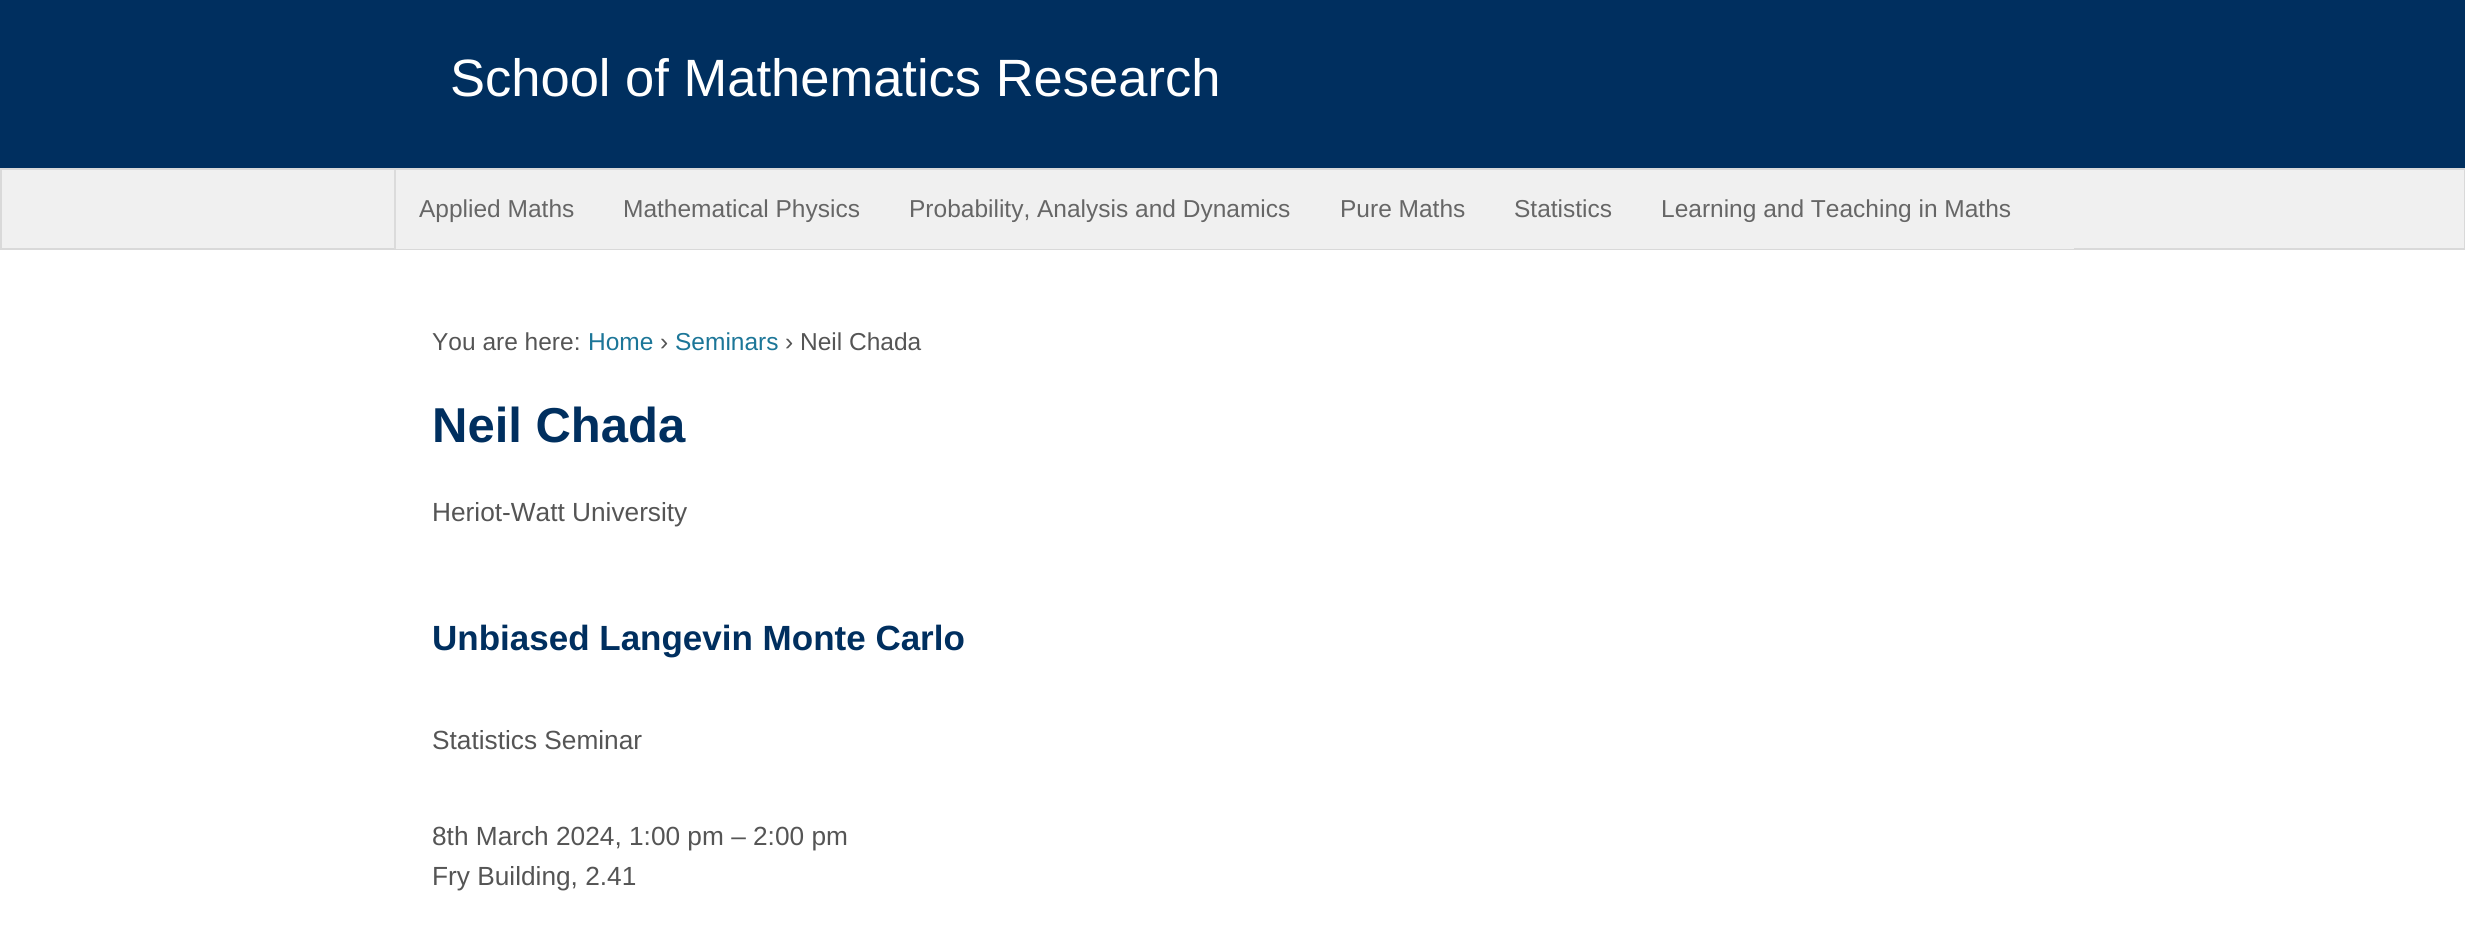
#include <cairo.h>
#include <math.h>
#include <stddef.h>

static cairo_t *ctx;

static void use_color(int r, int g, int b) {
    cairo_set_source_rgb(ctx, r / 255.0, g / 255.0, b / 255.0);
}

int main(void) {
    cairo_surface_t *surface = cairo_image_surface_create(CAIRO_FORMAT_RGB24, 2465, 944);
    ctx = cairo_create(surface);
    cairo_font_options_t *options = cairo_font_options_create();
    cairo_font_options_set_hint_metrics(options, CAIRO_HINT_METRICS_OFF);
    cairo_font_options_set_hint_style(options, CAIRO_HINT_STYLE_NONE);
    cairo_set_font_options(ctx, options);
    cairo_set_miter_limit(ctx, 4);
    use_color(255, 255, 255);
    cairo_paint(ctx);
    use_color(0, 47, 95);
    cairo_rectangle(ctx, 0, 0, 2465, 168);
    cairo_fill(ctx);
    cairo_select_font_face(ctx, "Liberation Sans", CAIRO_FONT_SLANT_NORMAL, CAIRO_FONT_WEIGHT_NORMAL);
    cairo_set_font_size(ctx, 52.5);
    use_color(255, 255, 255);
    cairo_move_to(ctx, 450, 96);
    cairo_show_text(ctx, "School of Mathematics Research");
    use_color(240, 240, 240);
    cairo_rectangle(ctx, 1, 169, 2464, 80);
    cairo_fill_preserve(ctx);
    use_color(217, 217, 217);
    cairo_stroke(ctx);
    use_color(240, 240, 240);
    cairo_rectangle(ctx, 396, 248, 1678, 1);
    cairo_fill(ctx);
    use_color(219, 219, 219);
    cairo_rectangle(ctx, 394, 170, 2, 79);
    cairo_fill(ctx);
    cairo_set_font_size(ctx, 24.5);
    use_color(102, 102, 102);
    cairo_move_to(ctx, 419, 217);
    cairo_show_text(ctx, "Applied Maths");
    cairo_move_to(ctx, 623, 217);
    cairo_show_text(ctx, "Mathematical Physics");
    cairo_move_to(ctx, 909, 217);
    cairo_show_text(ctx, "Probability, Analysis and Dynamics");
    cairo_move_to(ctx, 1340, 217);
    cairo_show_text(ctx, "Pure Maths");
    cairo_move_to(ctx, 1514, 217);
    cairo_show_text(ctx, "Statistics");
    cairo_move_to(ctx, 1661, 217);
    cairo_show_text(ctx, "Learning and Teaching in Maths");
    use_color(85, 85, 85);
    cairo_move_to(ctx, 432, 350);
    cairo_show_text(ctx, "You are here:");
    use_color(28, 118, 152);
    cairo_move_to(ctx, 588, 350);
    cairo_show_text(ctx, "Home");
    use_color(85, 85, 85);
    cairo_move_to(ctx, 660, 350);
    cairo_show_text(ctx, "›");
    use_color(28, 118, 152);
    cairo_move_to(ctx, 675, 350);
    cairo_show_text(ctx, "Seminars");
    use_color(85, 85, 85);
    cairo_move_to(ctx, 785, 350);
    cairo_show_text(ctx, "› Neil Chada");
    cairo_select_font_face(ctx, "Liberation Sans", CAIRO_FONT_SLANT_NORMAL, CAIRO_FONT_WEIGHT_BOLD);
    cairo_set_font_size(ctx, 49);
    use_color(0, 47, 95);
    cairo_move_to(ctx, 432, 442);
    cairo_show_text(ctx, "Neil Chada");
    cairo_select_font_face(ctx, "Liberation Sans", CAIRO_FONT_SLANT_NORMAL, CAIRO_FONT_WEIGHT_NORMAL);
    cairo_set_font_size(ctx, 26.25);
    use_color(85, 85, 85);
    cairo_move_to(ctx, 432, 521);
    cairo_show_text(ctx, "Heriot-Watt University");
    cairo_select_font_face(ctx, "Liberation Sans", CAIRO_FONT_SLANT_NORMAL, CAIRO_FONT_WEIGHT_BOLD);
    cairo_set_font_size(ctx, 35);
    use_color(0, 47, 95);
    cairo_move_to(ctx, 432, 650);
    cairo_show_text(ctx, "Unbiased Langevin Monte Carlo");
    cairo_select_font_face(ctx, "Liberation Sans", CAIRO_FONT_SLANT_NORMAL, CAIRO_FONT_WEIGHT_NORMAL);
    cairo_set_font_size(ctx, 26.25);
    use_color(85, 85, 85);
    cairo_move_to(ctx, 432, 749);
    cairo_show_text(ctx, "Statistics Seminar");
    cairo_move_to(ctx, 432, 845);
    cairo_show_text(ctx, "8th March 2024, 1:00 pm – 2:00 pm");
    cairo_move_to(ctx, 432, 885);
    cairo_show_text(ctx, "Fry Building, 2.41");
    cairo_surface_write_to_png(surface, "result.png");
    cairo_font_options_destroy(options);
    cairo_destroy(ctx);
    cairo_surface_destroy(surface);
    return 0;
}
